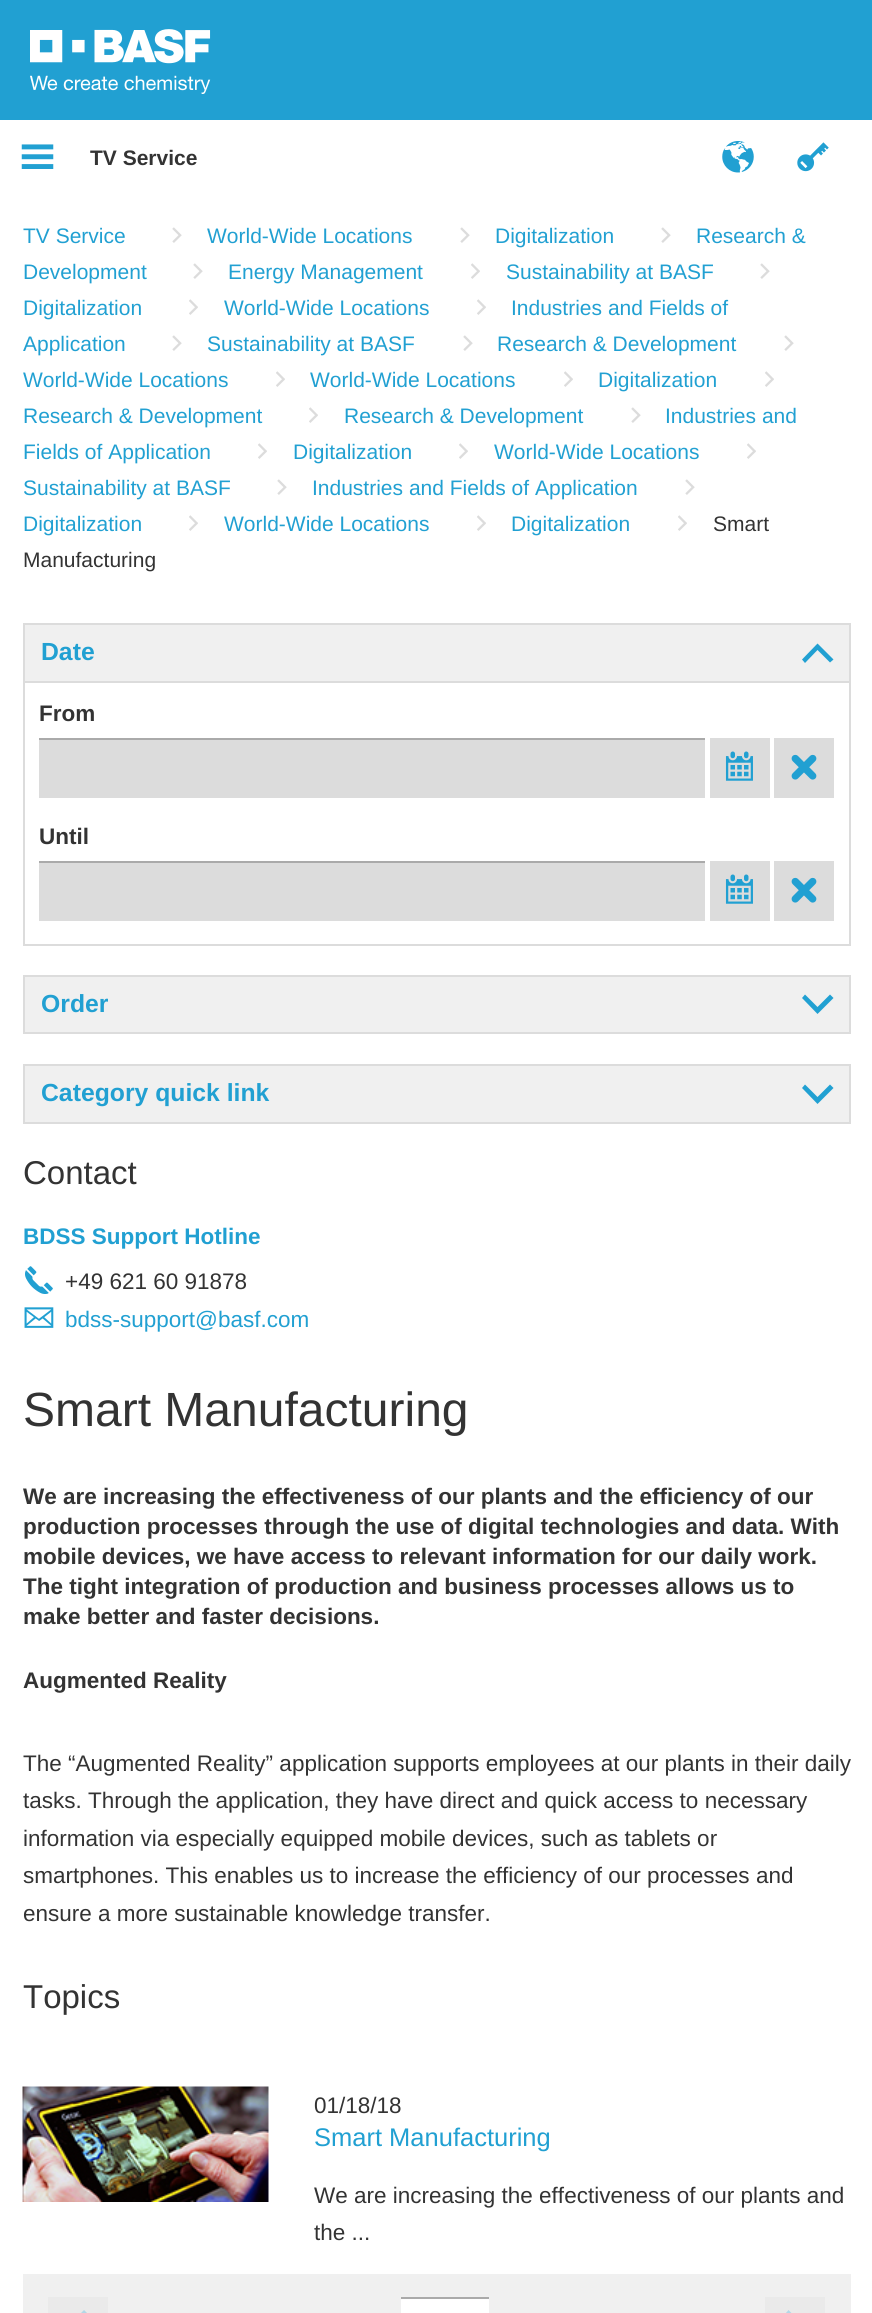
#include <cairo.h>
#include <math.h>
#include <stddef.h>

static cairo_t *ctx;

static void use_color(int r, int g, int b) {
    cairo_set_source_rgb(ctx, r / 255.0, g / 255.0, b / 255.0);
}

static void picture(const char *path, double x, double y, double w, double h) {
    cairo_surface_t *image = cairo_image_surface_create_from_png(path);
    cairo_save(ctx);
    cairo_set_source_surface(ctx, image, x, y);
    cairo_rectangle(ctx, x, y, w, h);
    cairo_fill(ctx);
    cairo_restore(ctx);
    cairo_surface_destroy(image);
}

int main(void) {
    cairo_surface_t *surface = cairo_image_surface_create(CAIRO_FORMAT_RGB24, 872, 2313);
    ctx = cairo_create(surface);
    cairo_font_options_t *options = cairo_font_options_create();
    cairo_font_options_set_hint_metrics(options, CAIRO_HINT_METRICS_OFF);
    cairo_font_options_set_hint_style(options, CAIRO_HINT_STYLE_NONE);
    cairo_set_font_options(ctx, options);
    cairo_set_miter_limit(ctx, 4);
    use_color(255, 255, 255);
    cairo_paint(ctx);
    use_color(33, 160, 210);
    cairo_rectangle(ctx, 0, 0, 872, 120);
    cairo_fill(ctx);
    picture("img1.png", 30, 29, 181, 65);
    picture("img2.png", 21, 144, 33, 25);
    cairo_select_font_face(ctx, "Liberation Sans", CAIRO_FONT_SLANT_NORMAL, CAIRO_FONT_WEIGHT_BOLD);
    cairo_set_font_size(ctx, 21);
    use_color(51, 51, 51);
    cairo_move_to(ctx, 90, 165);
    cairo_show_text(ctx, "TV Service");
    picture("img3.png", 722, 141, 32, 32);
    picture("img4.png", 797, 142, 32, 30);
    cairo_select_font_face(ctx, "Liberation Sans", CAIRO_FONT_SLANT_NORMAL, CAIRO_FONT_WEIGHT_NORMAL);
    use_color(33, 160, 210);
    cairo_move_to(ctx, 23, 243);
    cairo_show_text(ctx, "TV Service");
    picture("img5.png", 661, 227, 10, 16);
    cairo_move_to(ctx, 696, 243);
    cairo_show_text(ctx, "Research &");
    cairo_move_to(ctx, 23, 279);
    cairo_show_text(ctx, "Development");
    picture("img5.png", 172, 227, 10, 16);
    cairo_move_to(ctx, 207, 243);
    cairo_show_text(ctx, "World-Wide Locations");
    picture("img5.png", 460, 227, 10, 16);
    cairo_move_to(ctx, 495, 243);
    cairo_show_text(ctx, "Digitalization");
    picture("img5.png", 193, 263, 10, 16);
    cairo_move_to(ctx, 228, 279);
    cairo_show_text(ctx, "Energy Management");
    picture("img6.png", 471, 263, 9, 16);
    cairo_move_to(ctx, 506, 279);
    cairo_show_text(ctx, "Sustainability at BASF");
    picture("img6.png", 477, 299, 9, 16);
    cairo_move_to(ctx, 511, 315);
    cairo_show_text(ctx, "Industries and Fields of");
    cairo_move_to(ctx, 23, 351);
    cairo_show_text(ctx, "Application");
    picture("img5.png", 760, 263, 10, 16);
    cairo_move_to(ctx, 23, 315);
    cairo_show_text(ctx, "Digitalization");
    picture("img6.png", 189, 299, 9, 16);
    cairo_move_to(ctx, 224, 315);
    cairo_show_text(ctx, "World-Wide Locations");
    picture("img5.png", 172, 335, 10, 16);
    cairo_move_to(ctx, 207, 351);
    cairo_show_text(ctx, "Sustainability at BASF");
    picture("img5.png", 463, 335, 10, 16);
    cairo_move_to(ctx, 497, 351);
    cairo_show_text(ctx, "Research & Development");
    picture("img5.png", 784, 335, 10, 16);
    cairo_move_to(ctx, 23, 387);
    cairo_show_text(ctx, "World-Wide Locations");
    picture("img6.png", 276, 371, 9, 16);
    cairo_move_to(ctx, 310, 387);
    cairo_show_text(ctx, "World-Wide Locations");
    picture("img6.png", 564, 371, 9, 16);
    cairo_move_to(ctx, 598, 387);
    cairo_show_text(ctx, "Digitalization");
    picture("img6.png", 765, 371, 9, 16);
    cairo_move_to(ctx, 23, 423);
    cairo_show_text(ctx, "Research & Development");
    picture("img5.png", 631, 407, 10, 16);
    cairo_move_to(ctx, 665, 423);
    cairo_show_text(ctx, "Industries and");
    cairo_move_to(ctx, 23, 459);
    cairo_show_text(ctx, "Fields of Application");
    picture("img6.png", 309, 407, 9, 16);
    cairo_move_to(ctx, 344, 423);
    cairo_show_text(ctx, "Research & Development");
    picture("img6.png", 258, 443, 9, 16);
    cairo_move_to(ctx, 293, 459);
    cairo_show_text(ctx, "Digitalization");
    picture("img6.png", 459, 443, 9, 16);
    cairo_move_to(ctx, 494, 459);
    cairo_show_text(ctx, "World-Wide Locations");
    picture("img6.png", 747, 443, 9, 16);
    cairo_move_to(ctx, 23, 495);
    cairo_show_text(ctx, "Sustainability at BASF");
    picture("img5.png", 277, 479, 10, 16);
    cairo_move_to(ctx, 312, 495);
    cairo_show_text(ctx, "Industries and Fields of Application");
    picture("img5.png", 685, 479, 10, 16);
    cairo_move_to(ctx, 23, 531);
    cairo_show_text(ctx, "Digitalization");
    picture("img6.png", 189, 515, 9, 16);
    cairo_move_to(ctx, 224, 531);
    cairo_show_text(ctx, "World-Wide Locations");
    picture("img6.png", 477, 515, 9, 16);
    cairo_move_to(ctx, 511, 531);
    cairo_show_text(ctx, "Digitalization");
    picture("img6.png", 678, 515, 9, 16);
    use_color(51, 51, 51);
    cairo_move_to(ctx, 713, 531);
    cairo_show_text(ctx, "Smart");
    cairo_move_to(ctx, 23, 567);
    cairo_show_text(ctx, "Manufacturing");
    use_color(240, 240, 240);
    cairo_rectangle(ctx, 24, 624, 826, 58);
    cairo_fill_preserve(ctx);
    use_color(220, 220, 220);
    cairo_stroke(ctx);
    cairo_select_font_face(ctx, "Liberation Sans", CAIRO_FONT_SLANT_NORMAL, CAIRO_FONT_WEIGHT_BOLD);
    cairo_set_font_size(ctx, 24.75);
    use_color(33, 160, 210);
    cairo_move_to(ctx, 41, 660);
    cairo_show_text(ctx, "Date");
    cairo_new_path(ctx);
    cairo_move_to(ctx, 817.5, 643.5);
    cairo_line_to(ctx, 833.5, 659.5);
    cairo_line_to(ctx, 830, 662.5);
    cairo_line_to(ctx, 817.5, 650);
    cairo_line_to(ctx, 805, 663);
    cairo_line_to(ctx, 802, 659.5);
    cairo_close_path(ctx);
    cairo_fill(ctx);
    use_color(220, 220, 220);
    cairo_rectangle(ctx, 849, 683, 2, 262);
    cairo_fill(ctx);
    cairo_rectangle(ctx, 23, 944, 828, 2);
    cairo_fill(ctx);
    cairo_rectangle(ctx, 23, 683, 2, 262);
    cairo_fill(ctx);
    cairo_set_font_size(ctx, 22.5);
    use_color(51, 51, 51);
    cairo_move_to(ctx, 39, 721);
    cairo_show_text(ctx, "From");
    use_color(220, 220, 220);
    cairo_rectangle(ctx, 39, 740, 666, 58);
    cairo_fill(ctx);
    use_color(170, 170, 170);
    cairo_rectangle(ctx, 39, 738, 666, 2);
    cairo_fill(ctx);
    use_color(220, 220, 220);
    cairo_rectangle(ctx, 710, 738, 60, 60);
    cairo_fill(ctx);
    picture("img8.png", 730, 765, 19, 12);
    picture("img7.png", 725, 751, 28, 30);
    cairo_rectangle(ctx, 774, 738, 60, 60);
    cairo_fill(ctx);
    picture("img10.png", 794, 757, 20, 21);
    picture("img9.png", 791, 754, 26, 26);
    use_color(51, 51, 51);
    cairo_move_to(ctx, 39, 844);
    cairo_show_text(ctx, "Until");
    use_color(220, 220, 220);
    cairo_rectangle(ctx, 39, 863, 666, 58);
    cairo_fill(ctx);
    use_color(170, 170, 170);
    cairo_rectangle(ctx, 39, 861, 666, 2);
    cairo_fill(ctx);
    use_color(220, 220, 220);
    cairo_rectangle(ctx, 710, 861, 60, 60);
    cairo_fill(ctx);
    picture("img8.png", 730, 888, 19, 12);
    picture("img7.png", 725, 874, 28, 30);
    cairo_rectangle(ctx, 774, 861, 60, 60);
    cairo_fill(ctx);
    picture("img10.png", 794, 880, 20, 21);
    picture("img9.png", 791, 877, 26, 26);
    use_color(240, 240, 240);
    cairo_rectangle(ctx, 24, 976, 826, 57);
    cairo_fill_preserve(ctx);
    use_color(220, 220, 220);
    cairo_stroke(ctx);
    cairo_set_font_size(ctx, 24.75);
    use_color(33, 160, 210);
    cairo_move_to(ctx, 41, 1012);
    cairo_show_text(ctx, "Order");
    cairo_new_path(ctx);
    cairo_move_to(ctx, 817.5, 1014);
    cairo_line_to(ctx, 802, 998);
    cairo_line_to(ctx, 805, 994.5);
    cairo_line_to(ctx, 817.5, 1007);
    cairo_line_to(ctx, 830, 994.5);
    cairo_line_to(ctx, 833.5, 998);
    cairo_close_path(ctx);
    cairo_fill(ctx);
    use_color(240, 240, 240);
    cairo_rectangle(ctx, 24, 1065, 826, 58);
    cairo_fill_preserve(ctx);
    use_color(220, 220, 220);
    cairo_stroke(ctx);
    use_color(33, 160, 210);
    cairo_move_to(ctx, 41, 1101);
    cairo_show_text(ctx, "Category quick link");
    cairo_new_path(ctx);
    cairo_move_to(ctx, 817.5, 1104);
    cairo_line_to(ctx, 802, 1088);
    cairo_line_to(ctx, 805, 1084.5);
    cairo_line_to(ctx, 817.5, 1097);
    cairo_line_to(ctx, 830, 1084.5);
    cairo_line_to(ctx, 833.5, 1088);
    cairo_close_path(ctx);
    cairo_fill(ctx);
    cairo_select_font_face(ctx, "Liberation Sans", CAIRO_FONT_SLANT_NORMAL, CAIRO_FONT_WEIGHT_NORMAL);
    cairo_set_font_size(ctx, 33);
    use_color(51, 51, 51);
    cairo_move_to(ctx, 23, 1184);
    cairo_show_text(ctx, "Contact");
    cairo_select_font_face(ctx, "Liberation Sans", CAIRO_FONT_SLANT_NORMAL, CAIRO_FONT_WEIGHT_BOLD);
    cairo_set_font_size(ctx, 22.5);
    use_color(33, 160, 210);
    cairo_move_to(ctx, 23, 1244);
    cairo_show_text(ctx, "BDSS Support Hotline");
    picture("img11.png", 25, 1266, 28, 28);
    cairo_select_font_face(ctx, "Liberation Sans", CAIRO_FONT_SLANT_NORMAL, CAIRO_FONT_WEIGHT_NORMAL);
    use_color(51, 51, 51);
    cairo_move_to(ctx, 65, 1289);
    cairo_show_text(ctx, "+49 621 60 91878");
    picture("img12.png", 24, 1307, 30, 21);
    use_color(33, 160, 210);
    cairo_move_to(ctx, 65, 1327);
    cairo_show_text(ctx, "bdss-support@basf.com");
    cairo_set_font_size(ctx, 48);
    use_color(51, 51, 51);
    cairo_move_to(ctx, 23, 1426);
    cairo_show_text(ctx, "Smart Manufacturing");
    cairo_select_font_face(ctx, "Liberation Sans", CAIRO_FONT_SLANT_NORMAL, CAIRO_FONT_WEIGHT_BOLD);
    cairo_set_font_size(ctx, 22.5);
    cairo_move_to(ctx, 23, 1504);
    cairo_show_text(ctx, "We are increasing the effectiveness of our plants and the efficiency of our");
    cairo_move_to(ctx, 23, 1534);
    cairo_show_text(ctx, "production processes through the use of digital technologies and data. With");
    cairo_move_to(ctx, 23, 1564);
    cairo_show_text(ctx, "mobile devices, we have access to relevant information for our daily work.");
    cairo_move_to(ctx, 23, 1594);
    cairo_show_text(ctx, "The tight integration of production and business processes allows us to");
    cairo_move_to(ctx, 23, 1624);
    cairo_show_text(ctx, "make better and faster decisions.");
    cairo_move_to(ctx, 23, 1688);
    cairo_show_text(ctx, "Augmented Reality");
    cairo_select_font_face(ctx, "Liberation Sans", CAIRO_FONT_SLANT_NORMAL, CAIRO_FONT_WEIGHT_NORMAL);
    cairo_move_to(ctx, 23, 1771);
    cairo_show_text(ctx, "The “Augmented Reality” application supports employees at our plants in their daily");
    cairo_move_to(ctx, 23, 1808);
    cairo_show_text(ctx, "tasks. Through the application, they have direct and quick access to necessary");
    cairo_move_to(ctx, 23, 1846);
    cairo_show_text(ctx, "information via especially equipped mobile devices, such as tablets or");
    cairo_move_to(ctx, 23, 1883);
    cairo_show_text(ctx, "smartphones. This enables us to increase the efficiency of our processes and");
    cairo_move_to(ctx, 23, 1921);
    cairo_show_text(ctx, "ensure a more sustainable knowledge transfer.");
    cairo_set_font_size(ctx, 33);
    cairo_move_to(ctx, 23, 2008);
    cairo_show_text(ctx, "Topics");
    picture("img13.png", 22, 2086, 247, 116);
    cairo_set_font_size(ctx, 22.5);
    cairo_move_to(ctx, 314, 2113);
    cairo_show_text(ctx, "01/18/18");
    cairo_set_font_size(ctx, 25.5);
    use_color(33, 160, 210);
    cairo_move_to(ctx, 314, 2146);
    cairo_show_text(ctx, "Smart Manufacturing");
    cairo_set_font_size(ctx, 22.5);
    use_color(51, 51, 51);
    cairo_move_to(ctx, 314, 2203);
    cairo_show_text(ctx, "We are increasing the effectiveness of our plants and");
    cairo_move_to(ctx, 314, 2240);
    cairo_show_text(ctx, "the ...");
    use_color(240, 240, 240);
    cairo_rectangle(ctx, 23, 2274, 828, 39);
    cairo_fill(ctx);
    use_color(234, 234, 234);
    cairo_rectangle(ctx, 48, 2297, 60, 16);
    cairo_fill(ctx);
    use_color(178, 216, 231);
    cairo_new_path(ctx);
    cairo_move_to(ctx, 68.5, 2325.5);
    cairo_line_to(ctx, 84, 2310);
    cairo_line_to(ctx, 87.5, 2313.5);
    cairo_line_to(ctx, 75, 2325.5);
    cairo_line_to(ctx, 87.5, 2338);
    cairo_line_to(ctx, 84.5, 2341.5);
    cairo_close_path(ctx);
    cairo_fill(ctx);
    use_color(255, 255, 255);
    cairo_rectangle(ctx, 401, 2299, 88, 14);
    cairo_fill(ctx);
    use_color(170, 170, 170);
    cairo_rectangle(ctx, 401, 2297, 88, 2);
    cairo_fill(ctx);
    use_color(234, 234, 234);
    cairo_rectangle(ctx, 765, 2297, 60, 16);
    cairo_fill(ctx);
    use_color(178, 216, 231);
    cairo_new_path(ctx);
    cairo_move_to(ctx, 804.5, 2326);
    cairo_line_to(ctx, 789, 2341.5);
    cairo_line_to(ctx, 785.5, 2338);
    cairo_line_to(ctx, 798, 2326);
    cairo_line_to(ctx, 785.5, 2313.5);
    cairo_line_to(ctx, 788.5, 2310);
    cairo_close_path(ctx);
    cairo_fill(ctx);
    cairo_surface_write_to_png(surface, "result.png");
    cairo_font_options_destroy(options);
    cairo_destroy(ctx);
    cairo_surface_destroy(surface);
    return 0;
}
